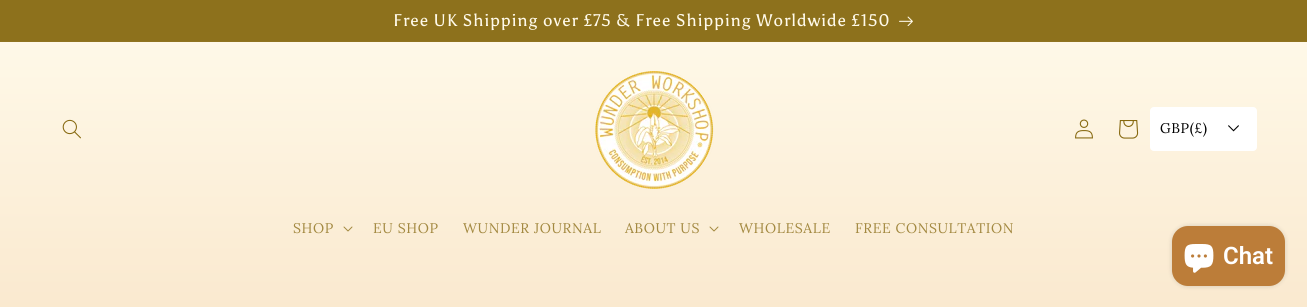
#include <cairo.h>
#include <math.h>
#include <stddef.h>

static cairo_t *ctx;

static void use_color(int r, int g, int b) {
    cairo_set_source_rgb(ctx, r / 255.0, g / 255.0, b / 255.0);
}

static void spaced_text(double x, double y, const char *s, double letter, double word) {
    cairo_move_to(ctx, x, y);
    while (*s) {
        char ch[5] = {0};
        int n = 0;
        do ch[n++] = *s++; while ((*s & 0xC0) == 0x80);
        cairo_show_text(ctx, ch);
        cairo_rel_move_to(ctx, letter + word * (*ch == ' '), 0);
    }
}

static void round_rect(double x, double y, double w, double h, double r) {
    cairo_new_sub_path(ctx);
    cairo_arc(ctx, x + w - r, y + h - r, r, 0, M_PI / 2);
    cairo_arc(ctx, x + r, y + h - r, r, M_PI / 2, M_PI);
    cairo_arc(ctx, x + r, y + r, r, M_PI, 1.5 * M_PI);
    cairo_arc(ctx, x + w - r, y + r, r, 1.5 * M_PI, 2 * M_PI);
    cairo_close_path(ctx);
}

static void shadow(double x, double y, double w, double h, double r, double blur, double alpha) {
    cairo_push_group_with_content(ctx, CAIRO_CONTENT_ALPHA);
    cairo_set_operator(ctx, CAIRO_OPERATOR_SOURCE);
    for (int i = 15; i >= -15 && fmin(w, h) + blur * i / 3 > 0; i -= 2) {
        double e = blur * i / 6;
        cairo_set_source_rgba(ctx, 0, 0, 0, alpha * erfc((i - 1) / 8.5) / 2);
        round_rect(x - e, y - e, w + 2 * e, h + 2 * e, fmax(0, fmin(r + e + blur * .6, fmin(w, h) / 2 + e)));
        cairo_fill(ctx);
    }
    cairo_pattern_t *soft = cairo_pop_group(ctx);
    cairo_mask(ctx, soft);
    cairo_pattern_destroy(soft);
}

static void picture(const char *path, double x, double y, double w, double h) {
    cairo_surface_t *image = cairo_image_surface_create_from_png(path);
    cairo_save(ctx);
    cairo_set_source_surface(ctx, image, x, y);
    cairo_rectangle(ctx, x, y, w, h);
    cairo_fill(ctx);
    cairo_restore(ctx);
    cairo_surface_destroy(image);
}

int main(void) {
    cairo_surface_t *surface = cairo_image_surface_create(CAIRO_FORMAT_RGB24, 1307, 307);
    ctx = cairo_create(surface);
    cairo_font_options_t *options = cairo_font_options_create();
    cairo_font_options_set_hint_metrics(options, CAIRO_HINT_METRICS_OFF);
    cairo_font_options_set_hint_style(options, CAIRO_HINT_STYLE_NONE);
    cairo_set_font_options(ctx, options);
    cairo_set_miter_limit(ctx, 4);
    cairo_pattern_t *gradient;
    use_color(255, 255, 255);
    cairo_paint(ctx);
    gradient = cairo_pattern_create_linear(654, 0, 654, 307);
    cairo_pattern_add_color_stop_rgba(gradient, 0.06, 1, 0.98, 0.918, 1);
    cairo_pattern_add_color_stop_rgba(gradient, 1, 0.98, 0.914, 0.812, 1);
    cairo_set_source(ctx, gradient);
    cairo_pattern_destroy(gradient);
    cairo_rectangle(ctx, 0, 42, 1307, 265);
    cairo_fill(ctx);
    use_color(144, 116, 33);
    cairo_rectangle(ctx, 0, 41, 1307, 1);
    cairo_fill(ctx);
    use_color(141, 113, 28);
    cairo_rectangle(ctx, 0, 0, 1307, 41);
    cairo_fill(ctx);
    cairo_select_font_face(ctx, "Asul", CAIRO_FONT_SLANT_NORMAL, CAIRO_FONT_WEIGHT_NORMAL);
    cairo_set_font_size(ctx, 16.9);
    use_color(255, 250, 234);
    spaced_text(393, 26, "Free UK Shipping over £75 & Free Shipping Worldwide £150", 1, 0);
    picture("img1.png", 899, 16, 14, 10);
    picture("img2.png", 62, 119, 19, 20);
    picture("img3.png", 595, 71, 119, 118);
    picture("img4.png", 1075, 119, 18, 20);
    picture("img5.png", 1119, 120, 20, 19);
    use_color(255, 255, 255);
    round_rect(1150, 107, 107, 44, 4);
    cairo_fill(ctx);
    cairo_select_font_face(ctx, "Lora", CAIRO_FONT_SLANT_NORMAL, CAIRO_FONT_WEIGHT_NORMAL);
    cairo_set_font_size(ctx, 14);
    use_color(0, 0, 0);
    spaced_text(1160, 133, "GBP(£)", 0.6, 0);
    picture("img6.png", 1228, 125, 11, 7);
    use_color(163, 137, 65);
    spaced_text(293, 233, "SHOP", 0.6, 0);
    picture("img7.png", 343, 226, 10, 6);
    spaced_text(373, 233, "EU SHOP", 0.6, 0);
    spaced_text(463, 233, "WUNDER JOURNAL", 0.6, 0);
    spaced_text(625, 233, "ABOUT US", 0.6, 0);
    picture("img7.png", 709, 226, 10, 6);
    spaced_text(739, 233, "WHOLESALE", 0.6, 0);
    spaced_text(855, 233, "FREE CONSULTATION", 0.6, 0);
    use_color(0, 0, 0);
    shadow(1172, 226, 113, 60, 16, 2.5, 0.15);
    use_color(188, 125, 57);
    round_rect(1172, 226, 113, 60, 16);
    cairo_fill(ctx);
    picture("img8.png", 1184, 244, 30, 29);
    cairo_select_font_face(ctx, "Roboto SemiBold", CAIRO_FONT_SLANT_NORMAL, CAIRO_FONT_WEIGHT_NORMAL);
    cairo_set_font_size(ctx, 24);
    use_color(255, 255, 255);
    cairo_move_to(ctx, 1223, 264);
    cairo_show_text(ctx, "Chat");
    cairo_surface_write_to_png(surface, "result.png");
    cairo_font_options_destroy(options);
    cairo_destroy(ctx);
    cairo_surface_destroy(surface);
    return 0;
}
